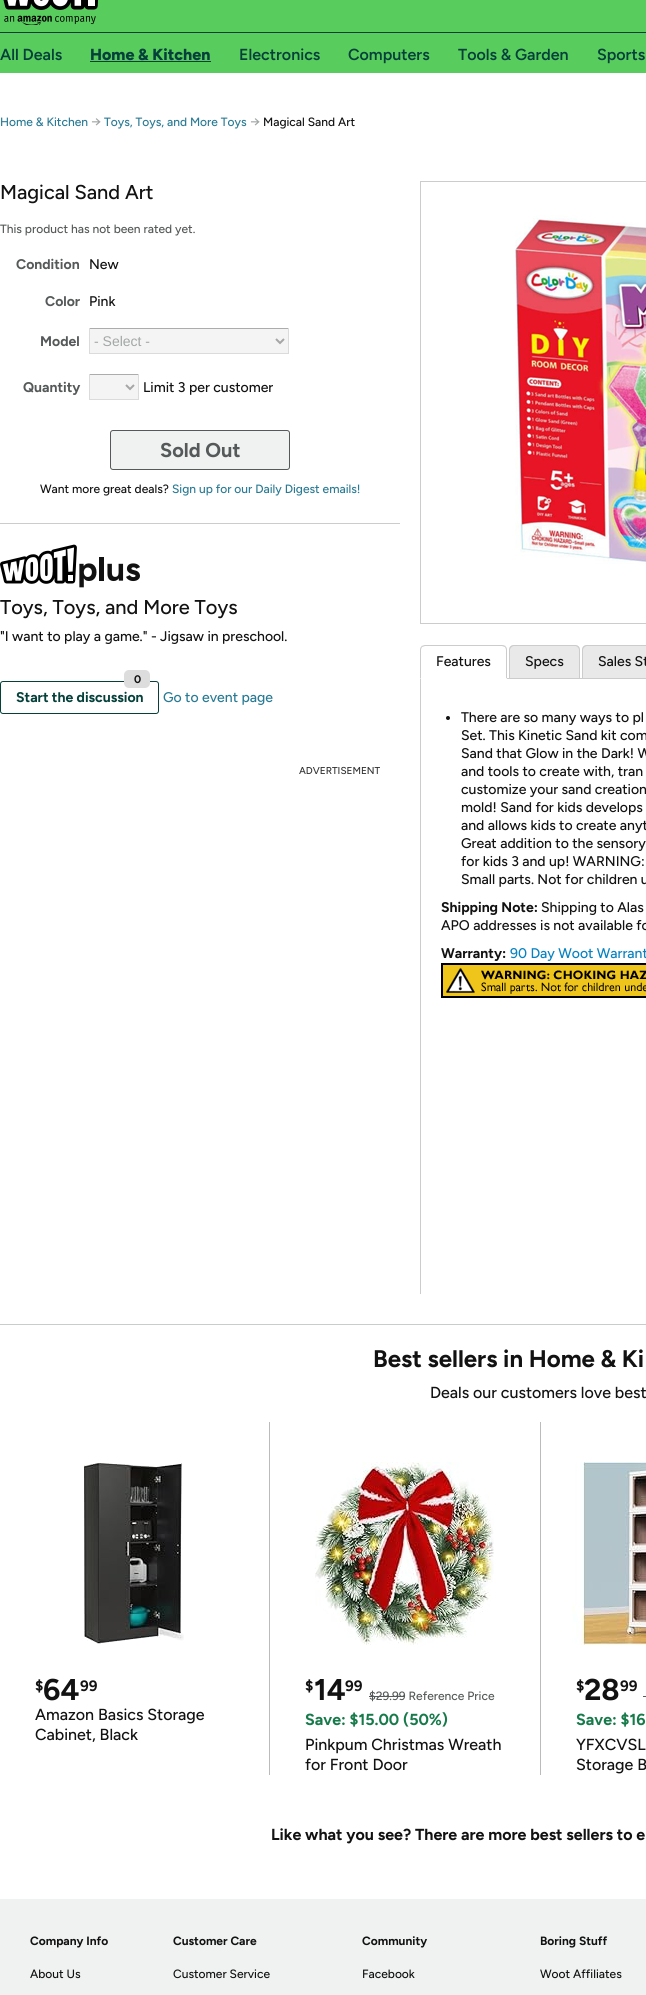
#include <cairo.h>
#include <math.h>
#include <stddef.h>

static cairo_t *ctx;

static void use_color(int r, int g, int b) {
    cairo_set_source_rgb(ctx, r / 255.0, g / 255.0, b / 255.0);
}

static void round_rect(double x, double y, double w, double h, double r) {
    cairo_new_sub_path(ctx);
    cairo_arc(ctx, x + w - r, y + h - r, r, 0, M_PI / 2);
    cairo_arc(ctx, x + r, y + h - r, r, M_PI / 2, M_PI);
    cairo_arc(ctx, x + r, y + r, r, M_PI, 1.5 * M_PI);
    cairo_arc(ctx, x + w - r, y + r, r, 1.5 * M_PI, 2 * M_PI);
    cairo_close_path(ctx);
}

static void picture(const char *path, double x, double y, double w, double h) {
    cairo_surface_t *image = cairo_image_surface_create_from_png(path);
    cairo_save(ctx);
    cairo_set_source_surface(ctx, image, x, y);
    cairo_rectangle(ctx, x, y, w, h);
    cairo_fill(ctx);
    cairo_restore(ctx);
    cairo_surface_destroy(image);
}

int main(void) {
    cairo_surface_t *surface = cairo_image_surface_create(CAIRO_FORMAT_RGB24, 646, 1995);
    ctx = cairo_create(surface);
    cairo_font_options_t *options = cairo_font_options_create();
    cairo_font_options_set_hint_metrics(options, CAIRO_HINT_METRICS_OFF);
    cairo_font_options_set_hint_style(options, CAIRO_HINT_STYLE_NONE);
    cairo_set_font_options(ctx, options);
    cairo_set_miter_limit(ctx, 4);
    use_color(255, 255, 255);
    cairo_paint(ctx);
    use_color(88, 205, 93);
    cairo_rectangle(ctx, 0, 0, 646, 73);
    cairo_fill(ctx);
    use_color(5, 65, 58);
    cairo_rectangle(ctx, 0, 32, 646, 1);
    cairo_fill(ctx);
    picture("img1.png", 3, 0, 95, 25);
    cairo_select_font_face(ctx, "Figtree SemiBold", CAIRO_FONT_SLANT_NORMAL, CAIRO_FONT_WEIGHT_NORMAL);
    cairo_set_font_size(ctx, 16);
    cairo_move_to(ctx, 0, 60);
    cairo_show_text(ctx, "All Deals");
    cairo_select_font_face(ctx, "Figtree ExtraBold", CAIRO_FONT_SLANT_NORMAL, CAIRO_FONT_WEIGHT_NORMAL);
    cairo_move_to(ctx, 90, 60);
    cairo_show_text(ctx, "Home & Kitchen");
    cairo_rectangle(ctx, 90, 61, 121, 1);
    cairo_fill(ctx);
    cairo_select_font_face(ctx, "Figtree SemiBold", CAIRO_FONT_SLANT_NORMAL, CAIRO_FONT_WEIGHT_NORMAL);
    cairo_move_to(ctx, 239, 60);
    cairo_show_text(ctx, "Electronics");
    cairo_move_to(ctx, 348, 60);
    cairo_show_text(ctx, "Computers");
    cairo_move_to(ctx, 458, 60);
    cairo_show_text(ctx, "Tools & Garden");
    cairo_move_to(ctx, 597, 60);
    cairo_show_text(ctx, "Sports");
    cairo_select_font_face(ctx, "Figtree Medium", CAIRO_FONT_SLANT_NORMAL, CAIRO_FONT_WEIGHT_NORMAL);
    cairo_set_font_size(ctx, 12);
    use_color(41, 122, 148);
    cairo_move_to(ctx, 0, 126);
    cairo_show_text(ctx, "Home & Kitchen");
    cairo_set_font_size(ctx, 14);
    use_color(162, 166, 166);
    cairo_move_to(ctx, 91, 126);
    cairo_show_text(ctx, "→");
    cairo_set_font_size(ctx, 12);
    use_color(41, 122, 148);
    cairo_move_to(ctx, 104, 126);
    cairo_show_text(ctx, "Toys, Toys, and More Toys");
    cairo_set_font_size(ctx, 14);
    use_color(162, 166, 166);
    cairo_move_to(ctx, 250, 126);
    cairo_show_text(ctx, "→");
    cairo_set_font_size(ctx, 12);
    use_color(18, 18, 18);
    cairo_move_to(ctx, 263, 126);
    cairo_show_text(ctx, "Magical Sand Art");
    use_color(204, 204, 204);
    cairo_rectangle(ctx, 0, 523, 400, 1);
    cairo_fill(ctx);
    cairo_set_font_size(ctx, 20);
    use_color(18, 18, 18);
    cairo_move_to(ctx, 0, 199);
    cairo_show_text(ctx, "Magical Sand Art");
    cairo_set_font_size(ctx, 12);
    use_color(86, 89, 89);
    cairo_move_to(ctx, 0, 233);
    cairo_show_text(ctx, "This product has not been rated yet.");
    cairo_select_font_face(ctx, "Figtree", CAIRO_FONT_SLANT_NORMAL, CAIRO_FONT_WEIGHT_BOLD);
    cairo_set_font_size(ctx, 14);
    cairo_move_to(ctx, 16, 269);
    cairo_show_text(ctx, "Condition");
    cairo_select_font_face(ctx, "Figtree Medium", CAIRO_FONT_SLANT_NORMAL, CAIRO_FONT_WEIGHT_NORMAL);
    use_color(18, 18, 18);
    cairo_move_to(ctx, 89, 269);
    cairo_show_text(ctx, "New");
    cairo_select_font_face(ctx, "Figtree", CAIRO_FONT_SLANT_NORMAL, CAIRO_FONT_WEIGHT_BOLD);
    use_color(86, 89, 89);
    cairo_move_to(ctx, 45, 306);
    cairo_show_text(ctx, "Color");
    cairo_select_font_face(ctx, "Figtree Medium", CAIRO_FONT_SLANT_NORMAL, CAIRO_FONT_WEIGHT_NORMAL);
    use_color(18, 18, 18);
    cairo_move_to(ctx, 89, 306);
    cairo_show_text(ctx, "Pink");
    cairo_select_font_face(ctx, "Figtree", CAIRO_FONT_SLANT_NORMAL, CAIRO_FONT_WEIGHT_BOLD);
    use_color(86, 89, 89);
    cairo_move_to(ctx, 40, 346);
    cairo_show_text(ctx, "Model");
    use_color(244, 244, 244);
    cairo_rectangle(ctx, 90, 329, 198, 24);
    cairo_fill(ctx);
    use_color(172, 172, 172);
    cairo_rectangle(ctx, 89, 328, 200, 1);
    cairo_fill(ctx);
    use_color(219, 219, 219);
    cairo_rectangle(ctx, 288, 328, 1, 26);
    cairo_fill(ctx);
    cairo_rectangle(ctx, 89, 353, 200, 1);
    cairo_fill(ctx);
    cairo_rectangle(ctx, 89, 328, 1, 26);
    cairo_fill(ctx);
    cairo_new_path(ctx);
    cairo_move_to(ctx, 276, 339);
    cairo_line_to(ctx, 280, 343);
    cairo_line_to(ctx, 284, 339);
    use_color(166, 166, 166);
    cairo_stroke(ctx);
    cairo_select_font_face(ctx, "Liberation Sans", CAIRO_FONT_SLANT_NORMAL, CAIRO_FONT_WEIGHT_NORMAL);
    use_color(162, 166, 166);
    cairo_move_to(ctx, 94, 346);
    cairo_show_text(ctx, "- Select -");
    cairo_select_font_face(ctx, "Figtree", CAIRO_FONT_SLANT_NORMAL, CAIRO_FONT_WEIGHT_BOLD);
    use_color(86, 89, 89);
    cairo_move_to(ctx, 23, 392);
    cairo_show_text(ctx, "Quantity");
    use_color(244, 244, 244);
    cairo_rectangle(ctx, 90, 375, 48, 24);
    cairo_fill(ctx);
    use_color(172, 172, 172);
    cairo_rectangle(ctx, 89, 374, 50, 1);
    cairo_fill(ctx);
    use_color(219, 219, 219);
    cairo_rectangle(ctx, 138, 374, 1, 26);
    cairo_fill(ctx);
    cairo_rectangle(ctx, 89, 399, 50, 1);
    cairo_fill(ctx);
    cairo_rectangle(ctx, 89, 374, 1, 26);
    cairo_fill(ctx);
    cairo_new_path(ctx);
    cairo_move_to(ctx, 126, 385);
    cairo_line_to(ctx, 130, 389);
    cairo_line_to(ctx, 134, 385);
    use_color(166, 166, 166);
    cairo_stroke(ctx);
    cairo_select_font_face(ctx, "Figtree Medium", CAIRO_FONT_SLANT_NORMAL, CAIRO_FONT_WEIGHT_NORMAL);
    use_color(18, 18, 18);
    cairo_move_to(ctx, 143, 392);
    cairo_show_text(ctx, "Limit 3 per customer");
    use_color(240, 242, 242);
    round_rect(110.5, 430.5, 179, 39, 2.5);
    cairo_fill_preserve(ctx);
    use_color(86, 89, 89);
    cairo_set_line_width(ctx, 1);
    cairo_stroke(ctx);
    cairo_select_font_face(ctx, "Figtree", CAIRO_FONT_SLANT_NORMAL, CAIRO_FONT_WEIGHT_BOLD);
    cairo_set_font_size(ctx, 20);
    cairo_move_to(ctx, 160, 457);
    cairo_show_text(ctx, "Sold Out");
    cairo_select_font_face(ctx, "Figtree Medium", CAIRO_FONT_SLANT_NORMAL, CAIRO_FONT_WEIGHT_NORMAL);
    cairo_set_font_size(ctx, 12);
    use_color(18, 18, 18);
    cairo_move_to(ctx, 40, 493);
    cairo_show_text(ctx, "Want more great deals?");
    use_color(41, 122, 148);
    cairo_move_to(ctx, 172, 493);
    cairo_show_text(ctx, "Sign up for our Daily Digest emails!");
    picture("img2.png", 0, 544, 140, 44);
    cairo_set_font_size(ctx, 20);
    use_color(18, 18, 18);
    cairo_move_to(ctx, 0, 614);
    cairo_show_text(ctx, "Toys, Toys, and More Toys");
    cairo_set_font_size(ctx, 14);
    cairo_move_to(ctx, 0, 641);
    cairo_show_text(ctx, "\"I want to play a game.\" - Jigsaw in preschool.");
    round_rect(0.5, 681.5, 158, 32, 2.5);
    use_color(5, 65, 58);
    cairo_stroke(ctx);
    use_color(221, 221, 221);
    round_rect(124, 670, 26, 18, 5);
    cairo_fill(ctx);
    cairo_select_font_face(ctx, "Figtree", CAIRO_FONT_SLANT_NORMAL, CAIRO_FONT_WEIGHT_BOLD);
    cairo_set_font_size(ctx, 11);
    use_color(18, 18, 18);
    cairo_move_to(ctx, 134, 683);
    cairo_show_text(ctx, "0");
    cairo_set_font_size(ctx, 14);
    use_color(5, 65, 58);
    cairo_move_to(ctx, 16, 702);
    cairo_show_text(ctx, "Start the discussion");
    cairo_select_font_face(ctx, "Figtree Medium", CAIRO_FONT_SLANT_NORMAL, CAIRO_FONT_WEIGHT_NORMAL);
    use_color(41, 122, 148);
    cairo_move_to(ctx, 163, 702);
    cairo_show_text(ctx, "Go to event page");
    cairo_set_font_size(ctx, 10);
    use_color(51, 51, 51);
    cairo_move_to(ctx, 299, 774);
    cairo_show_text(ctx, "ADVERTISEMENT");
    cairo_rectangle(ctx, 420.5, 181.5, 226, 442);
    use_color(204, 204, 204);
    cairo_stroke(ctx);
    picture("img3.png", 515, 215, 131, 349);
    cairo_rectangle(ctx, 507, 678, 139, 1);
    cairo_fill(ctx);
    cairo_new_path(ctx);
    cairo_move_to(ctx, 425, 645);
    cairo_curve_to(ctx, 424, 645, 422, 646, 421, 646);
    cairo_line_to(ctx, 422, 647);
    cairo_line_to(ctx, 425, 646);
    cairo_line_to(ctx, 502, 646);
    cairo_line_to(ctx, 505, 647);
    cairo_line_to(ctx, 506, 646);
    cairo_curve_to(ctx, 505, 646, 504, 645, 502, 645);
    cairo_close_path(ctx);
    cairo_fill(ctx);
    cairo_new_path(ctx);
    cairo_move_to(ctx, 507, 679);
    cairo_line_to(ctx, 507, 650);
    cairo_curve_to(ctx, 507, 648.5, 506.5, 647, 505.5, 646.5);
    cairo_line_to(ctx, 505, 647);
    cairo_curve_to(ctx, 505.5, 648, 506, 649, 506, 650);
    cairo_line_to(ctx, 506, 678);
    cairo_close_path(ctx);
    cairo_fill(ctx);
    use_color(255, 255, 255);
    cairo_new_path(ctx);
    cairo_move_to(ctx, 507, 679);
    cairo_line_to(ctx, 506, 678);
    cairo_line_to(ctx, 421, 678);
    cairo_line_to(ctx, 420, 679);
    cairo_close_path(ctx);
    cairo_fill(ctx);
    use_color(204, 204, 204);
    cairo_new_path(ctx);
    cairo_move_to(ctx, 420, 679);
    cairo_line_to(ctx, 421, 678);
    cairo_line_to(ctx, 421, 650);
    cairo_curve_to(ctx, 421, 649, 421.5, 648, 422, 647);
    cairo_line_to(ctx, 421.5, 646.5);
    cairo_curve_to(ctx, 420.5, 647, 420, 648.5, 420, 650);
    cairo_close_path(ctx);
    cairo_fill(ctx);
    cairo_set_font_size(ctx, 14);
    use_color(18, 18, 18);
    cairo_move_to(ctx, 436, 666);
    cairo_show_text(ctx, "Features");
    use_color(233, 233, 233);
    cairo_new_path(ctx);
    cairo_move_to(ctx, 514, 645);
    cairo_line_to(ctx, 575, 645);
    cairo_curve_to(ctx, 578, 645, 580, 647, 580, 650);
    cairo_line_to(ctx, 580, 678);
    cairo_line_to(ctx, 509, 678);
    cairo_line_to(ctx, 509, 650);
    cairo_curve_to(ctx, 509, 647, 511, 645, 514, 645);
    cairo_close_path(ctx);
    cairo_fill(ctx);
    use_color(204, 204, 204);
    cairo_set_fill_rule(ctx, CAIRO_FILL_RULE_EVEN_ODD);
    cairo_new_path(ctx);
    cairo_move_to(ctx, 514, 645);
    cairo_line_to(ctx, 575, 645);
    cairo_curve_to(ctx, 578, 645, 580, 647, 580, 650);
    cairo_line_to(ctx, 580, 678);
    cairo_line_to(ctx, 509, 678);
    cairo_line_to(ctx, 509, 650);
    cairo_curve_to(ctx, 509, 647, 511, 645, 514, 645);
    cairo_close_path(ctx);
    cairo_move_to(ctx, 514, 646);
    cairo_line_to(ctx, 575, 646);
    cairo_curve_to(ctx, 577, 646, 579, 648, 579, 650);
    cairo_line_to(ctx, 579, 678);
    cairo_line_to(ctx, 510, 678);
    cairo_line_to(ctx, 510, 650);
    cairo_curve_to(ctx, 510, 648, 512, 646, 514, 646);
    cairo_close_path(ctx);
    cairo_fill(ctx);
    use_color(18, 18, 18);
    cairo_move_to(ctx, 525, 666);
    cairo_show_text(ctx, "Specs");
    use_color(233, 233, 233);
    cairo_new_path(ctx);
    cairo_move_to(ctx, 587, 645);
    cairo_line_to(ctx, 646, 645);
    cairo_curve_to(ctx, 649, 645, 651, 647, 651, 650);
    cairo_line_to(ctx, 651, 678);
    cairo_line_to(ctx, 582, 678);
    cairo_line_to(ctx, 582, 650);
    cairo_curve_to(ctx, 582, 647, 584, 645, 587, 645);
    cairo_close_path(ctx);
    cairo_fill(ctx);
    use_color(204, 204, 204);
    cairo_new_path(ctx);
    cairo_move_to(ctx, 587, 645);
    cairo_line_to(ctx, 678, 645);
    cairo_curve_to(ctx, 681, 645, 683, 647, 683, 650);
    cairo_line_to(ctx, 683, 678);
    cairo_line_to(ctx, 582, 678);
    cairo_line_to(ctx, 582, 650);
    cairo_curve_to(ctx, 582, 647, 584, 645, 587, 645);
    cairo_close_path(ctx);
    cairo_move_to(ctx, 587, 646);
    cairo_line_to(ctx, 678, 646);
    cairo_curve_to(ctx, 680, 646, 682, 648, 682, 650);
    cairo_line_to(ctx, 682, 678);
    cairo_line_to(ctx, 583, 678);
    cairo_line_to(ctx, 583, 650);
    cairo_curve_to(ctx, 583, 648, 585, 646, 587, 646);
    cairo_close_path(ctx);
    cairo_fill(ctx);
    use_color(18, 18, 18);
    cairo_move_to(ctx, 598, 666);
    cairo_show_text(ctx, "Sales St");
    use_color(204, 204, 204);
    cairo_rectangle(ctx, 420, 679, 1, 615);
    cairo_fill(ctx);
    use_color(18, 18, 18);
    cairo_arc(ctx, 448, 718, 2, 0, 2 * M_PI);
    cairo_fill(ctx);
    cairo_move_to(ctx, 461, 722);
    cairo_show_text(ctx, "There are so many ways to pl");
    cairo_move_to(ctx, 461, 740);
    cairo_show_text(ctx, "Set. This Kinetic Sand kit com");
    cairo_move_to(ctx, 461, 758);
    cairo_show_text(ctx, "Sand that Glow in the Dark! W");
    cairo_move_to(ctx, 461, 776);
    cairo_show_text(ctx, "and tools to create with, tran");
    cairo_move_to(ctx, 461, 794);
    cairo_show_text(ctx, "customize your sand creation");
    cairo_move_to(ctx, 461, 812);
    cairo_show_text(ctx, "mold! Sand for kids develops");
    cairo_move_to(ctx, 461, 830);
    cairo_show_text(ctx, "and allows kids to create anyt");
    cairo_move_to(ctx, 461, 848);
    cairo_show_text(ctx, "Great addition to the sensory");
    cairo_move_to(ctx, 461, 866);
    cairo_show_text(ctx, "for kids 3 and up! WARNING:");
    cairo_move_to(ctx, 461, 884);
    cairo_show_text(ctx, "Small parts. Not for children u");
    cairo_select_font_face(ctx, "Figtree", CAIRO_FONT_SLANT_NORMAL, CAIRO_FONT_WEIGHT_BOLD);
    cairo_move_to(ctx, 441, 912);
    cairo_show_text(ctx, "Shipping Note:");
    cairo_select_font_face(ctx, "Figtree Medium", CAIRO_FONT_SLANT_NORMAL, CAIRO_FONT_WEIGHT_NORMAL);
    cairo_move_to(ctx, 541, 912);
    cairo_show_text(ctx, "Shipping to Alas");
    cairo_move_to(ctx, 441, 930);
    cairo_show_text(ctx, "APO addresses is not available fo");
    cairo_select_font_face(ctx, "Figtree", CAIRO_FONT_SLANT_NORMAL, CAIRO_FONT_WEIGHT_BOLD);
    cairo_move_to(ctx, 441, 958);
    cairo_show_text(ctx, "Warranty:");
    cairo_select_font_face(ctx, "Figtree Medium", CAIRO_FONT_SLANT_NORMAL, CAIRO_FONT_WEIGHT_NORMAL);
    use_color(7, 130, 193);
    cairo_move_to(ctx, 510, 958);
    cairo_show_text(ctx, "90 Day Woot Warrant");
    picture("img4.png", 441, 963, 205, 35);
    use_color(200, 204, 204);
    cairo_rectangle(ctx, 0, 1324, 646, 1);
    cairo_fill(ctx);
    cairo_select_font_face(ctx, "Figtree", CAIRO_FONT_SLANT_NORMAL, CAIRO_FONT_WEIGHT_BOLD);
    cairo_set_font_size(ctx, 24);
    use_color(18, 18, 18);
    cairo_move_to(ctx, 373, 1367);
    cairo_show_text(ctx, "Best sellers in Home & Ki");
    cairo_select_font_face(ctx, "Figtree Medium", CAIRO_FONT_SLANT_NORMAL, CAIRO_FONT_WEIGHT_NORMAL);
    cairo_set_font_size(ctx, 16);
    cairo_move_to(ctx, 430, 1398);
    cairo_show_text(ctx, "Deals our customers love best");
    use_color(187, 187, 187);
    cairo_rectangle(ctx, 269, 1422, 1, 353);
    cairo_fill(ctx);
    picture("img5.png", 83, 1463, 101, 181);
    cairo_select_font_face(ctx, "Figtree", CAIRO_FONT_SLANT_NORMAL, CAIRO_FONT_WEIGHT_BOLD);
    cairo_set_font_size(ctx, 15);
    use_color(18, 18, 18);
    cairo_move_to(ctx, 35, 1691);
    cairo_show_text(ctx, "$");
    cairo_set_font_size(ctx, 30);
    cairo_move_to(ctx, 43, 1700);
    cairo_show_text(ctx, "64");
    cairo_set_font_size(ctx, 15);
    cairo_move_to(ctx, 80, 1691);
    cairo_show_text(ctx, "99");
    cairo_select_font_face(ctx, "Figtree Medium", CAIRO_FONT_SLANT_NORMAL, CAIRO_FONT_WEIGHT_NORMAL);
    cairo_set_font_size(ctx, 16);
    cairo_move_to(ctx, 35, 1720);
    cairo_show_text(ctx, "Amazon Basics Storage");
    cairo_move_to(ctx, 35, 1740);
    cairo_show_text(ctx, "Cabinet, Black");
    use_color(187, 187, 187);
    cairo_rectangle(ctx, 540, 1422, 1, 353);
    cairo_fill(ctx);
    picture("img6.png", 315, 1462, 179, 183);
    cairo_select_font_face(ctx, "Figtree", CAIRO_FONT_SLANT_NORMAL, CAIRO_FONT_WEIGHT_BOLD);
    cairo_set_font_size(ctx, 15);
    use_color(18, 18, 18);
    cairo_move_to(ctx, 305, 1691);
    cairo_show_text(ctx, "$");
    cairo_set_font_size(ctx, 30);
    cairo_move_to(ctx, 314, 1700);
    cairo_show_text(ctx, "14");
    cairo_set_font_size(ctx, 15);
    cairo_move_to(ctx, 345, 1691);
    cairo_show_text(ctx, "99");
    cairo_select_font_face(ctx, "Figtree Medium", CAIRO_FONT_SLANT_NORMAL, CAIRO_FONT_WEIGHT_NORMAL);
    cairo_set_font_size(ctx, 12);
    use_color(86, 89, 89);
    cairo_move_to(ctx, 369, 1700);
    cairo_show_text(ctx, "$29.99 Reference Price");
    cairo_rectangle(ctx, 369, 1696, 36, 1);
    cairo_fill(ctx);
    cairo_select_font_face(ctx, "Figtree", CAIRO_FONT_SLANT_NORMAL, CAIRO_FONT_WEIGHT_BOLD);
    cairo_set_font_size(ctx, 16);
    use_color(23, 122, 74);
    cairo_move_to(ctx, 305, 1725);
    cairo_show_text(ctx, "Save: $15.00 (50%)");
    cairo_select_font_face(ctx, "Figtree Medium", CAIRO_FONT_SLANT_NORMAL, CAIRO_FONT_WEIGHT_NORMAL);
    use_color(18, 18, 18);
    cairo_move_to(ctx, 305, 1750);
    cairo_show_text(ctx, "Pinkpum Christmas Wreath");
    cairo_move_to(ctx, 305, 1770);
    cairo_show_text(ctx, "for Front Door");
    picture("img7.png", 572, 1462, 74, 183);
    cairo_select_font_face(ctx, "Figtree", CAIRO_FONT_SLANT_NORMAL, CAIRO_FONT_WEIGHT_BOLD);
    cairo_set_font_size(ctx, 15);
    cairo_move_to(ctx, 576, 1691);
    cairo_show_text(ctx, "$");
    cairo_set_font_size(ctx, 30);
    cairo_move_to(ctx, 584, 1700);
    cairo_show_text(ctx, "28");
    cairo_set_font_size(ctx, 15);
    cairo_move_to(ctx, 620, 1691);
    cairo_show_text(ctx, "99");
    use_color(86, 89, 89);
    cairo_rectangle(ctx, 643, 1696, 3, 1);
    cairo_fill(ctx);
    cairo_set_font_size(ctx, 16);
    use_color(23, 122, 74);
    cairo_move_to(ctx, 576, 1725);
    cairo_show_text(ctx, "Save: $16");
    cairo_select_font_face(ctx, "Figtree Medium", CAIRO_FONT_SLANT_NORMAL, CAIRO_FONT_WEIGHT_NORMAL);
    use_color(18, 18, 18);
    cairo_move_to(ctx, 576, 1750);
    cairo_show_text(ctx, "YFXCVSL");
    cairo_move_to(ctx, 576, 1770);
    cairo_show_text(ctx, "Storage B");
    cairo_select_font_face(ctx, "Figtree", CAIRO_FONT_SLANT_NORMAL, CAIRO_FONT_WEIGHT_BOLD);
    cairo_move_to(ctx, 271, 1840);
    cairo_show_text(ctx, "Like what you see? There are more best sellers to e");
    use_color(240, 242, 242);
    cairo_rectangle(ctx, 0, 1899, 646, 96);
    cairo_fill(ctx);
    cairo_set_font_size(ctx, 12);
    use_color(18, 18, 18);
    cairo_move_to(ctx, 30, 1945);
    cairo_show_text(ctx, "Company Info");
    cairo_select_font_face(ctx, "Figtree Medium", CAIRO_FONT_SLANT_NORMAL, CAIRO_FONT_WEIGHT_NORMAL);
    cairo_move_to(ctx, 30, 1978);
    cairo_show_text(ctx, "About Us");
    cairo_select_font_face(ctx, "Figtree", CAIRO_FONT_SLANT_NORMAL, CAIRO_FONT_WEIGHT_BOLD);
    cairo_move_to(ctx, 173, 1945);
    cairo_show_text(ctx, "Customer Care");
    cairo_select_font_face(ctx, "Figtree Medium", CAIRO_FONT_SLANT_NORMAL, CAIRO_FONT_WEIGHT_NORMAL);
    cairo_move_to(ctx, 173, 1978);
    cairo_show_text(ctx, "Customer Service");
    cairo_select_font_face(ctx, "Figtree", CAIRO_FONT_SLANT_NORMAL, CAIRO_FONT_WEIGHT_BOLD);
    cairo_move_to(ctx, 362, 1945);
    cairo_show_text(ctx, "Community");
    cairo_select_font_face(ctx, "Figtree Medium", CAIRO_FONT_SLANT_NORMAL, CAIRO_FONT_WEIGHT_NORMAL);
    cairo_move_to(ctx, 362, 1978);
    cairo_show_text(ctx, "Facebook");
    cairo_select_font_face(ctx, "Figtree", CAIRO_FONT_SLANT_NORMAL, CAIRO_FONT_WEIGHT_BOLD);
    cairo_move_to(ctx, 540, 1945);
    cairo_show_text(ctx, "Boring Stuff");
    cairo_select_font_face(ctx, "Figtree Medium", CAIRO_FONT_SLANT_NORMAL, CAIRO_FONT_WEIGHT_NORMAL);
    cairo_move_to(ctx, 540, 1978);
    cairo_show_text(ctx, "Woot Affiliates");
    cairo_surface_write_to_png(surface, "result.png");
    cairo_font_options_destroy(options);
    cairo_destroy(ctx);
    cairo_surface_destroy(surface);
    return 0;
}
